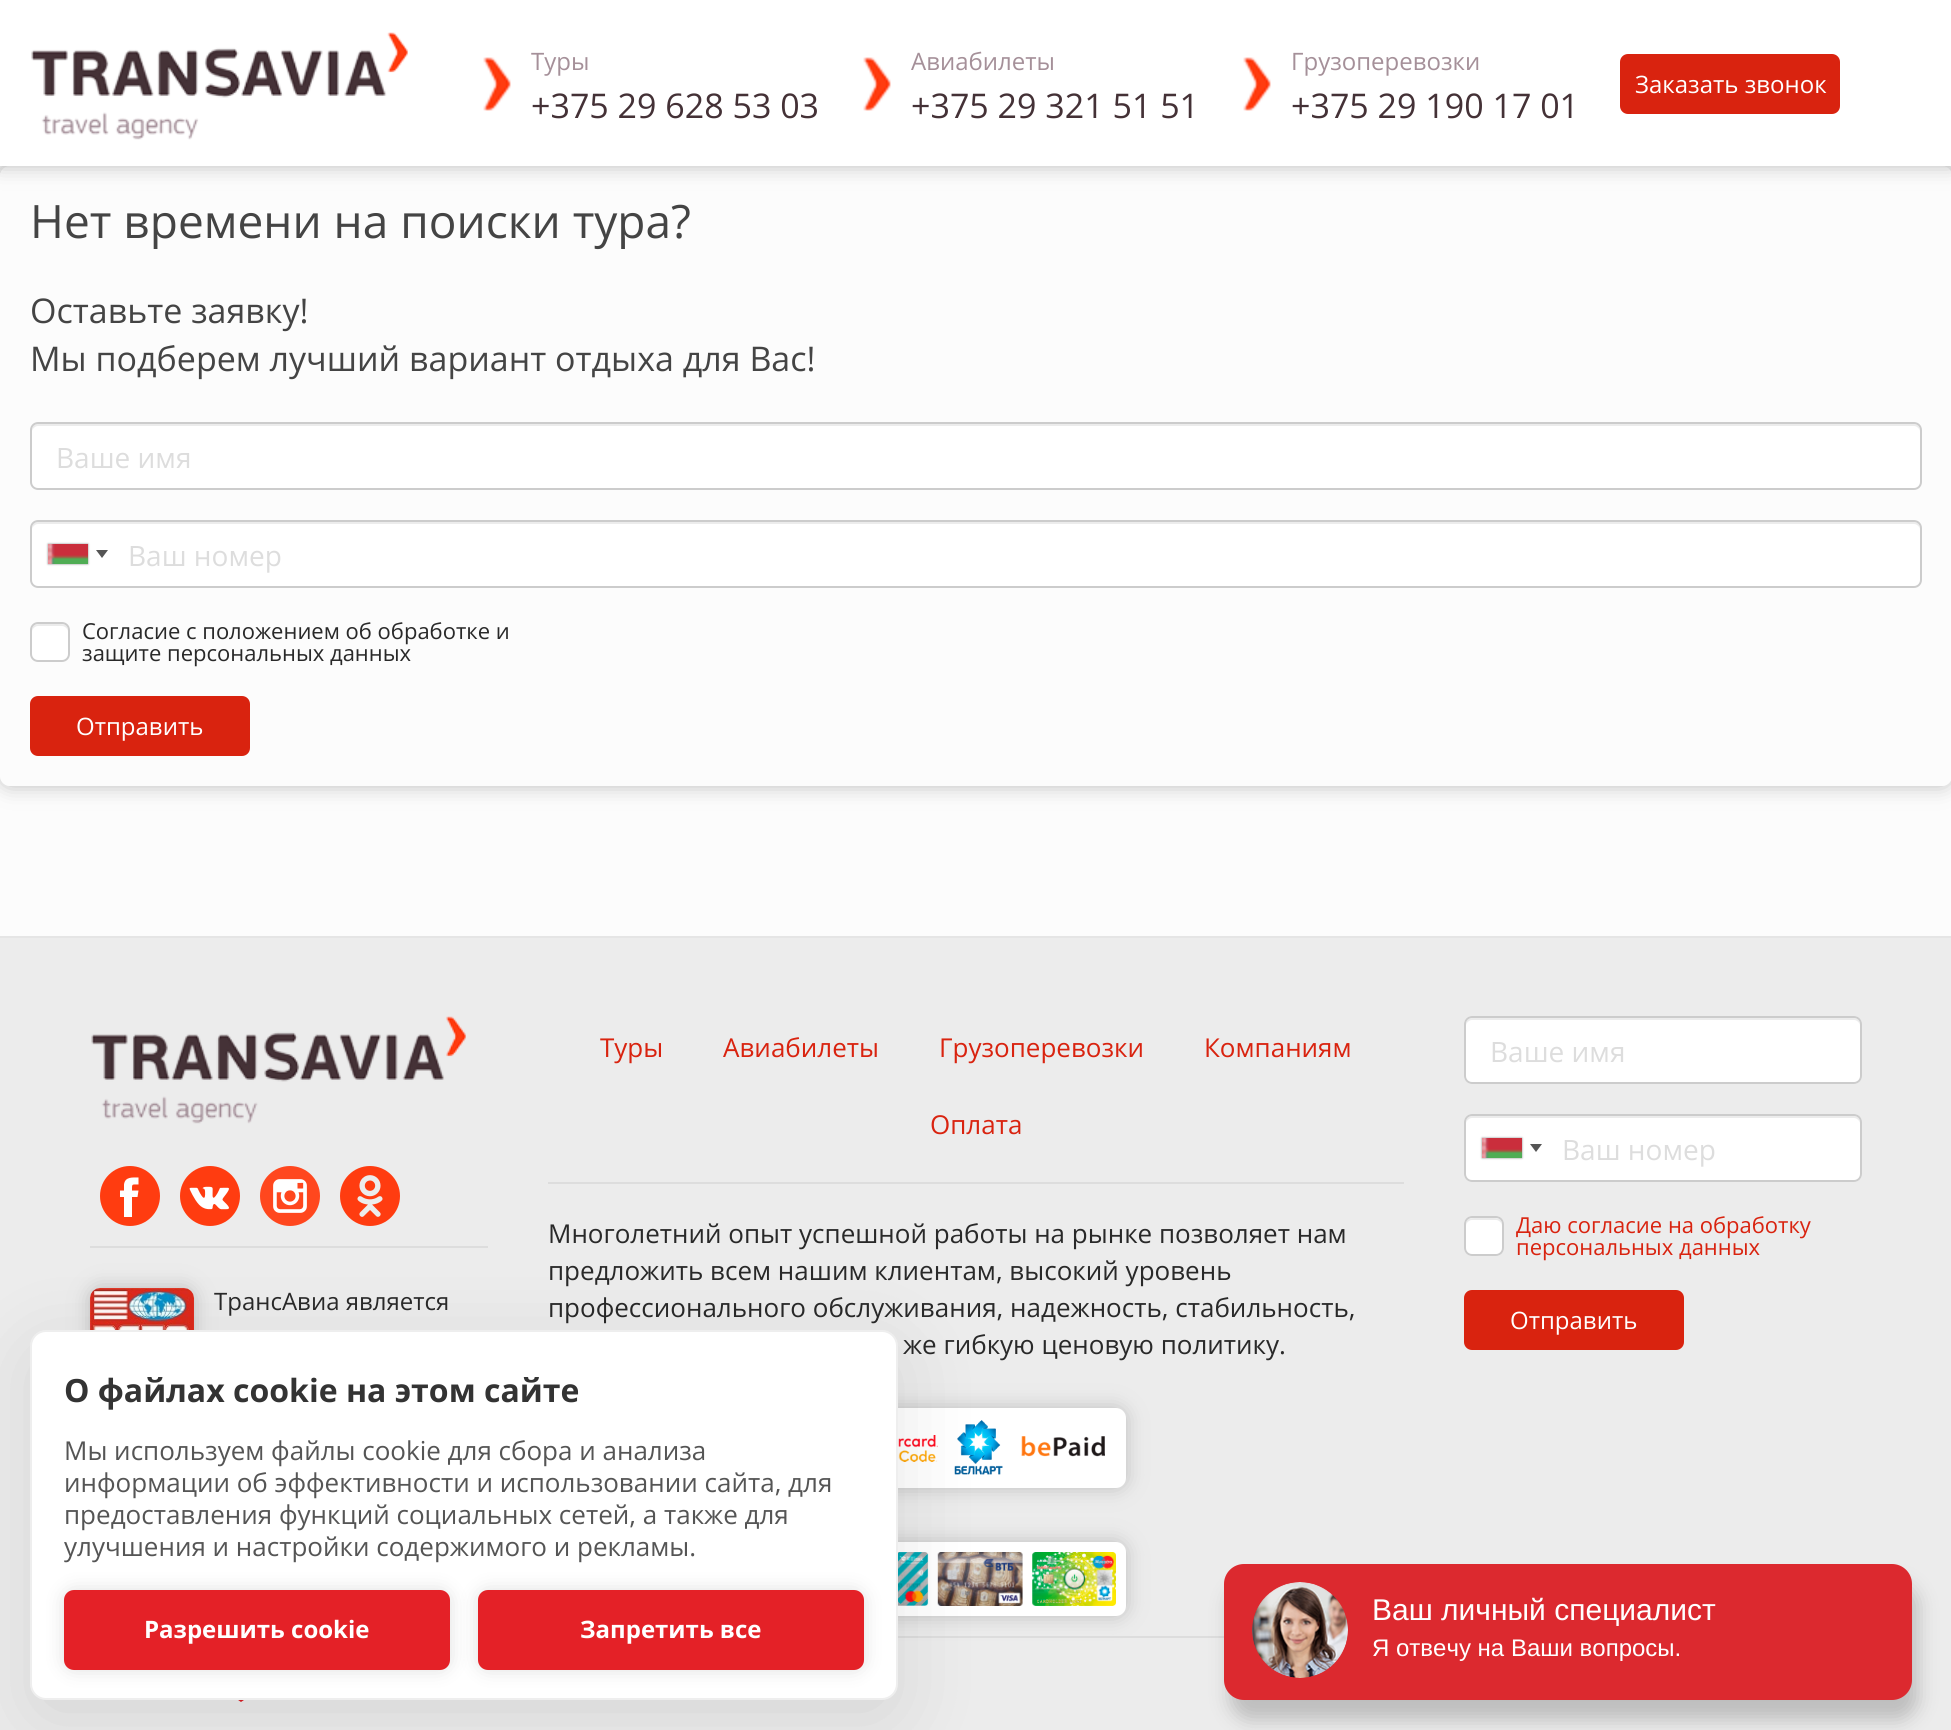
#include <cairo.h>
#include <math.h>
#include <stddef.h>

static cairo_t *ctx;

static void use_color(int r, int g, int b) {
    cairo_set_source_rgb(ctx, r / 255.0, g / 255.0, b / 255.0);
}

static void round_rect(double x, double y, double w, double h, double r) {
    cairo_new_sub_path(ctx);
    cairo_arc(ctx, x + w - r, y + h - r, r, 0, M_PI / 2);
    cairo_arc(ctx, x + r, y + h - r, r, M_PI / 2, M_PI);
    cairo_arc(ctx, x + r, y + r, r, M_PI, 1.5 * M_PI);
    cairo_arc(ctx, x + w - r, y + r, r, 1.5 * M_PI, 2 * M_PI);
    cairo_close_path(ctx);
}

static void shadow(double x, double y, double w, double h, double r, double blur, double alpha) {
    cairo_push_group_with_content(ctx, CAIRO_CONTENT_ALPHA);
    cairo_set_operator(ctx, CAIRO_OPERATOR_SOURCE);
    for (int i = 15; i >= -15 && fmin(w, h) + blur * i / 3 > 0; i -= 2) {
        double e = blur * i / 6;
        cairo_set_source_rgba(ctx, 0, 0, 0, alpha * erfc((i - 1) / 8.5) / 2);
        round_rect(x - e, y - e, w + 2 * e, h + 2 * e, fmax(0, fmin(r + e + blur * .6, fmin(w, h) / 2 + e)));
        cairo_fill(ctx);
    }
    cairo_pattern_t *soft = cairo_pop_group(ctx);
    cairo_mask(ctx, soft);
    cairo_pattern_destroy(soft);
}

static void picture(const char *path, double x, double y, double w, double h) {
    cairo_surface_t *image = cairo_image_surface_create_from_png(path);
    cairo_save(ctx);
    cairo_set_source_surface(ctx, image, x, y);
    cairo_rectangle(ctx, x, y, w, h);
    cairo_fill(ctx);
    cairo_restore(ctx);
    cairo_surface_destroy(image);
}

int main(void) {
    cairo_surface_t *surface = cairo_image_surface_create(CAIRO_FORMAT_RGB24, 1951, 1730);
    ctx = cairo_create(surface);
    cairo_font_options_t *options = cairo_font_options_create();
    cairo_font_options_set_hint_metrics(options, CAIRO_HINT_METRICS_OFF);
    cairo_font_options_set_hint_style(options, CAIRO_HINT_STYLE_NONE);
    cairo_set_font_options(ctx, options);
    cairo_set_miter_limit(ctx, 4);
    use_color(252, 252, 252);
    cairo_paint(ctx);
    use_color(190, 190, 190);
    shadow(0, 0, 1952, 166, 0, 10, 1);
    cairo_save(ctx);
    cairo_set_fill_rule(ctx, CAIRO_FILL_RULE_EVEN_ODD);
    cairo_new_path(ctx);
    cairo_move_to(ctx, 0, 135);
    cairo_line_to(ctx, 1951, 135);
    cairo_line_to(ctx, 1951, 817);
    cairo_line_to(ctx, 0, 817);
    cairo_close_path(ctx);
    cairo_move_to(ctx, 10, 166);
    cairo_line_to(ctx, 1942, 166);
    cairo_curve_to(ctx, 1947.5, 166, 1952, 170.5, 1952, 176);
    cairo_line_to(ctx, 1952, 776);
    cairo_curve_to(ctx, 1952, 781.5, 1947.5, 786, 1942, 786);
    cairo_line_to(ctx, 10, 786);
    cairo_curve_to(ctx, 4.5, 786, 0, 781.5, 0, 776);
    cairo_line_to(ctx, 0, 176);
    cairo_curve_to(ctx, 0, 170.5, 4.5, 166, 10, 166);
    cairo_close_path(ctx);
    cairo_clip(ctx);
    shadow(0, 166, 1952, 620, 10, 10, 1);
    cairo_restore(ctx);
    use_color(255, 255, 255);
    cairo_rectangle(ctx, 0, 0, 1951, 166);
    cairo_fill(ctx);
    picture("img1.png", 31, 32, 377, 108);
    picture("img2.png", 483, 57, 28, 54);
    cairo_select_font_face(ctx, "Open Sans", CAIRO_FONT_SLANT_NORMAL, CAIRO_FONT_WEIGHT_NORMAL);
    cairo_set_font_size(ctx, 24);
    use_color(165, 144, 153);
    cairo_move_to(ctx, 531, 70);
    cairo_show_text(ctx, "Туры");
    cairo_set_font_size(ctx, 34);
    use_color(68, 49, 54);
    cairo_move_to(ctx, 531, 118);
    cairo_show_text(ctx, "+375 29 628 53 03");
    picture("img2.png", 863, 57, 28, 54);
    cairo_set_font_size(ctx, 24);
    use_color(165, 144, 153);
    cairo_move_to(ctx, 911, 70);
    cairo_show_text(ctx, "Авиабилеты");
    cairo_set_font_size(ctx, 34);
    use_color(68, 49, 54);
    cairo_move_to(ctx, 911, 118);
    cairo_show_text(ctx, "+375 29 321 51 51");
    picture("img2.png", 1243, 57, 28, 54);
    cairo_set_font_size(ctx, 24);
    use_color(165, 144, 153);
    cairo_move_to(ctx, 1291, 70);
    cairo_show_text(ctx, "Грузоперевозки");
    cairo_set_font_size(ctx, 34);
    use_color(68, 49, 54);
    cairo_move_to(ctx, 1291, 118);
    cairo_show_text(ctx, "+375 29 190 17 01");
    use_color(217, 35, 15);
    round_rect(1621, 55, 218, 58, 7);
    cairo_fill_preserve(ctx);
    cairo_stroke(ctx);
    cairo_set_font_size(ctx, 24);
    use_color(255, 255, 255);
    cairo_move_to(ctx, 1635, 93);
    cairo_show_text(ctx, "Заказать звонок");
    cairo_set_font_size(ctx, 46);
    use_color(68, 68, 68);
    cairo_move_to(ctx, 30, 238);
    cairo_show_text(ctx, "Нет времени на поиски тура?");
    cairo_set_font_size(ctx, 34);
    cairo_move_to(ctx, 30, 323);
    cairo_show_text(ctx, "Оставьте заявку!");
    cairo_move_to(ctx, 30, 371);
    cairo_show_text(ctx, "Мы подберем лучший вариант отдыха для Вас!");
    use_color(255, 255, 255);
    round_rect(30, 422, 1892, 68, 8);
    cairo_fill(ctx);
    use_color(236, 236, 236);
    cairo_new_path(ctx);
    cairo_move_to(ctx, 38, 426);
    cairo_line_to(ctx, 1914, 426);
    cairo_curve_to(ctx, 1917, 426, 1920, 429, 1920, 432);
    cairo_curve_to(ctx, 1920, 428, 1919, 424, 1914, 424);
    cairo_line_to(ctx, 38, 424);
    cairo_curve_to(ctx, 33, 424, 32, 428, 32, 432);
    cairo_curve_to(ctx, 32, 429, 35, 426, 38, 426);
    cairo_close_path(ctx);
    cairo_fill(ctx);
    round_rect(31, 423, 1890, 66, 7);
    use_color(204, 204, 204);
    cairo_stroke(ctx);
    cairo_set_font_size(ctx, 28);
    use_color(221, 221, 221);
    cairo_move_to(ctx, 56, 468);
    cairo_show_text(ctx, "Ваше имя");
    use_color(255, 255, 255);
    round_rect(30, 520, 1892, 68, 8);
    cairo_fill(ctx);
    use_color(236, 236, 236);
    cairo_new_path(ctx);
    cairo_move_to(ctx, 38, 524);
    cairo_line_to(ctx, 1914, 524);
    cairo_curve_to(ctx, 1917, 524, 1920, 527, 1920, 530);
    cairo_curve_to(ctx, 1920, 526, 1919, 522, 1914, 522);
    cairo_line_to(ctx, 38, 522);
    cairo_curve_to(ctx, 33, 522, 32, 526, 32, 530);
    cairo_curve_to(ctx, 32, 527, 35, 524, 38, 524);
    cairo_close_path(ctx);
    cairo_fill(ctx);
    round_rect(31, 521, 1890, 66, 7);
    use_color(204, 204, 204);
    cairo_stroke(ctx);
    use_color(136, 136, 136);
    shadow(48, 544, 40, 20, 0, 1, 1);
    picture("img3.png", 48, 544, 40, 20);
    use_color(85, 85, 85);
    cairo_new_path(ctx);
    cairo_move_to(ctx, 96, 550);
    cairo_line_to(ctx, 108, 550);
    cairo_line_to(ctx, 102, 558);
    cairo_close_path(ctx);
    cairo_fill(ctx);
    use_color(221, 221, 221);
    cairo_move_to(ctx, 128, 566);
    cairo_show_text(ctx, "Ваш номер");
    use_color(255, 255, 255);
    round_rect(30, 622, 40, 40, 8);
    cairo_fill(ctx);
    use_color(235, 235, 235);
    cairo_new_path(ctx);
    cairo_move_to(ctx, 38, 626);
    cairo_line_to(ctx, 62, 626);
    cairo_curve_to(ctx, 65, 626, 68, 629, 68, 632);
    cairo_curve_to(ctx, 68, 624.5, 65, 624, 58, 624);
    cairo_line_to(ctx, 42, 624);
    cairo_curve_to(ctx, 35, 624, 32, 624.5, 32, 632);
    cairo_curve_to(ctx, 32, 629, 35, 626, 38, 626);
    cairo_close_path(ctx);
    cairo_fill(ctx);
    round_rect(31, 623, 38, 38, 7);
    use_color(204, 204, 204);
    cairo_stroke(ctx);
    cairo_set_font_size(ctx, 22);
    use_color(41, 41, 41);
    cairo_move_to(ctx, 82, 639);
    cairo_show_text(ctx, "Согласие с положением об обработке и");
    cairo_move_to(ctx, 82, 661);
    cairo_show_text(ctx, "защите персональных данных");
    use_color(217, 35, 15);
    round_rect(31, 697, 218, 58, 7);
    cairo_fill_preserve(ctx);
    cairo_stroke(ctx);
    cairo_set_font_size(ctx, 24);
    use_color(255, 255, 255);
    cairo_move_to(ctx, 76, 735);
    cairo_show_text(ctx, "Отправить");
    use_color(236, 236, 236);
    cairo_rectangle(ctx, 0, 938, 1951, 792);
    cairo_fill(ctx);
    use_color(229, 229, 229);
    cairo_rectangle(ctx, 0, 936, 1951, 2);
    cairo_fill(ctx);
    picture("img4.png", 91, 1016, 375, 108);
    use_color(255, 60, 16);
    cairo_arc(ctx, 130, 1196, 30, 0, 2 * M_PI);
    cairo_fill(ctx);
    use_color(255, 255, 255);
    cairo_new_path(ctx);
    cairo_move_to(ctx, 137.5, 1197);
    cairo_line_to(ctx, 132, 1197);
    cairo_line_to(ctx, 132, 1217);
    cairo_line_to(ctx, 124, 1217);
    cairo_line_to(ctx, 124, 1197);
    cairo_line_to(ctx, 120, 1197);
    cairo_line_to(ctx, 120, 1190.5);
    cairo_line_to(ctx, 124, 1190.5);
    cairo_line_to(ctx, 124, 1184.5);
    cairo_curve_to(ctx, 125, 1176.5, 132.5, 1177.5, 138.5, 1177.5);
    cairo_line_to(ctx, 138.5, 1184.5);
    cairo_curve_to(ctx, 131.5, 1184.5, 132, 1183.5, 132, 1190.5);
    cairo_line_to(ctx, 138.5, 1190.5);
    cairo_close_path(ctx);
    cairo_fill(ctx);
    picture("img5.png", 180, 1166, 60, 60);
    picture("img6.png", 260, 1166, 60, 60);
    picture("img7.png", 340, 1166, 60, 60);
    use_color(221, 221, 221);
    cairo_rectangle(ctx, 90, 1246, 398, 2);
    cairo_fill(ctx);
    use_color(190, 190, 190);
    shadow(90, 1288, 104, 64, 10, 10, 1);
    picture("img8.png", 90, 1288, 104, 42);
    use_color(41, 41, 41);
    cairo_move_to(ctx, 214, 1310);
    cairo_show_text(ctx, "ТрансАвиа является");
    cairo_set_font_size(ctx, 26);
    use_color(217, 35, 15);
    cairo_move_to(ctx, 600, 1057);
    cairo_show_text(ctx, "Туры");
    cairo_move_to(ctx, 723, 1057);
    cairo_show_text(ctx, "Авиабилеты");
    cairo_move_to(ctx, 939, 1057);
    cairo_show_text(ctx, "Грузоперевозки");
    cairo_move_to(ctx, 1204, 1057);
    cairo_show_text(ctx, "Компаниям");
    cairo_move_to(ctx, 930, 1134);
    cairo_show_text(ctx, "Оплата");
    use_color(221, 221, 221);
    cairo_rectangle(ctx, 548, 1182, 856, 2);
    cairo_fill(ctx);
    use_color(41, 41, 41);
    cairo_move_to(ctx, 548, 1243);
    cairo_show_text(ctx, "Многолетний опыт успешной работы на рынке позволяет нам");
    cairo_move_to(ctx, 548, 1280);
    cairo_show_text(ctx, "предложить всем нашим клиентам, высокий уровень");
    cairo_move_to(ctx, 548, 1317);
    cairo_show_text(ctx, "профессионального обслуживания, надежность, стабильность,");
    cairo_move_to(ctx, 903, 1354);
    cairo_show_text(ctx, "же гибкую ценовую политику.");
    use_color(190, 190, 190);
    shadow(548, 1408, 578, 80, 10, 10, 1);
    use_color(255, 255, 255);
    round_rect(548, 1408, 578, 80, 10);
    cairo_fill(ctx);
    picture("img9.png", 898, 1420, 207, 55);
    use_color(190, 190, 190);
    shadow(548, 1542, 578, 74, 10, 10, 1);
    use_color(255, 255, 255);
    round_rect(548, 1542, 578, 74, 10);
    cairo_fill(ctx);
    picture("img10.png", 898, 1552, 218, 54);
    round_rect(1464, 1016, 398, 68, 8);
    cairo_fill(ctx);
    use_color(236, 236, 236);
    cairo_new_path(ctx);
    cairo_move_to(ctx, 1472, 1020);
    cairo_line_to(ctx, 1854, 1020);
    cairo_curve_to(ctx, 1857, 1020, 1860, 1023, 1860, 1026);
    cairo_curve_to(ctx, 1860, 1022, 1859, 1018, 1854, 1018);
    cairo_line_to(ctx, 1472, 1018);
    cairo_curve_to(ctx, 1467, 1018, 1466, 1022, 1466, 1026);
    cairo_curve_to(ctx, 1466, 1023, 1469, 1020, 1472, 1020);
    cairo_close_path(ctx);
    cairo_fill(ctx);
    round_rect(1465, 1017, 396, 66, 7);
    use_color(204, 204, 204);
    cairo_stroke(ctx);
    cairo_set_font_size(ctx, 28);
    use_color(221, 221, 221);
    cairo_move_to(ctx, 1490, 1062);
    cairo_show_text(ctx, "Ваше имя");
    use_color(255, 255, 255);
    round_rect(1464, 1114, 398, 68, 8);
    cairo_fill(ctx);
    use_color(236, 236, 236);
    cairo_new_path(ctx);
    cairo_move_to(ctx, 1472, 1118);
    cairo_line_to(ctx, 1854, 1118);
    cairo_curve_to(ctx, 1857, 1118, 1860, 1121, 1860, 1124);
    cairo_curve_to(ctx, 1860, 1120, 1859, 1116, 1854, 1116);
    cairo_line_to(ctx, 1472, 1116);
    cairo_curve_to(ctx, 1467, 1116, 1466, 1120, 1466, 1124);
    cairo_curve_to(ctx, 1466, 1121, 1469, 1118, 1472, 1118);
    cairo_close_path(ctx);
    cairo_fill(ctx);
    round_rect(1465, 1115, 396, 66, 7);
    use_color(204, 204, 204);
    cairo_stroke(ctx);
    use_color(136, 136, 136);
    shadow(1482, 1138, 40, 20, 0, 1, 1);
    picture("img3.png", 1482, 1138, 40, 20);
    use_color(85, 85, 85);
    cairo_new_path(ctx);
    cairo_move_to(ctx, 1530, 1144);
    cairo_line_to(ctx, 1542, 1144);
    cairo_line_to(ctx, 1536, 1152);
    cairo_close_path(ctx);
    cairo_fill(ctx);
    use_color(221, 221, 221);
    cairo_move_to(ctx, 1562, 1160);
    cairo_show_text(ctx, "Ваш номер");
    use_color(255, 255, 255);
    round_rect(1464, 1216, 40, 40, 8);
    cairo_fill(ctx);
    use_color(235, 235, 235);
    cairo_new_path(ctx);
    cairo_move_to(ctx, 1472, 1220);
    cairo_line_to(ctx, 1496, 1220);
    cairo_curve_to(ctx, 1499, 1220, 1502, 1223, 1502, 1226);
    cairo_curve_to(ctx, 1502, 1218.5, 1499, 1218, 1492, 1218);
    cairo_line_to(ctx, 1476, 1218);
    cairo_curve_to(ctx, 1469, 1218, 1466, 1218.5, 1466, 1226);
    cairo_curve_to(ctx, 1466, 1223, 1469, 1220, 1472, 1220);
    cairo_close_path(ctx);
    cairo_fill(ctx);
    round_rect(1465, 1217, 38, 38, 7);
    use_color(204, 204, 204);
    cairo_stroke(ctx);
    cairo_set_font_size(ctx, 22);
    use_color(217, 35, 15);
    cairo_move_to(ctx, 1516, 1233);
    cairo_show_text(ctx, "Даю согласие на обработку");
    cairo_move_to(ctx, 1516, 1255);
    cairo_show_text(ctx, "персональных данных");
    round_rect(1465, 1291, 218, 58, 7);
    cairo_fill_preserve(ctx);
    cairo_stroke(ctx);
    cairo_set_font_size(ctx, 24);
    use_color(255, 255, 255);
    cairo_move_to(ctx, 1510, 1329);
    cairo_show_text(ctx, "Отправить");
    use_color(221, 221, 221);
    cairo_rectangle(ctx, 898, 1636, 326, 2);
    cairo_fill(ctx);
    use_color(218, 28, 34);
    cairo_set_fill_rule(ctx, CAIRO_FILL_RULE_EVEN_ODD);
    cairo_new_path(ctx);
    cairo_move_to(ctx, 241, 1702);
    cairo_curve_to(ctx, 270, 1684, 250, 1669, 241, 1679);
    cairo_curve_to(ctx, 232, 1669, 212, 1684, 241, 1702);
    cairo_close_path(ctx);
    cairo_fill(ctx);
    use_color(0, 0, 0);
    shadow(30, 1350, 868, 370, 16, 40, 0.1);
    use_color(255, 255, 255);
    round_rect(31, 1331, 866, 368, 15);
    cairo_fill_preserve(ctx);
    use_color(238, 238, 238);
    cairo_stroke(ctx);
    cairo_select_font_face(ctx, "Open Sans", CAIRO_FONT_SLANT_NORMAL, CAIRO_FONT_WEIGHT_BOLD);
    cairo_set_font_size(ctx, 32);
    use_color(51, 51, 51);
    cairo_move_to(ctx, 64, 1402);
    cairo_show_text(ctx, "О файлах cookie на этом сайте");
    cairo_select_font_face(ctx, "Open Sans", CAIRO_FONT_SLANT_NORMAL, CAIRO_FONT_WEIGHT_NORMAL);
    cairo_set_font_size(ctx, 26);
    use_color(85, 85, 85);
    cairo_move_to(ctx, 64, 1460);
    cairo_show_text(ctx, "Мы используем файлы cookie для сбора и анализа");
    cairo_move_to(ctx, 64, 1492);
    cairo_show_text(ctx, "информации об эффективности и использовании сайта, для");
    cairo_move_to(ctx, 64, 1524);
    cairo_show_text(ctx, "предоставления функций социальных сетей, а также для");
    cairo_move_to(ctx, 64, 1556);
    cairo_show_text(ctx, "улучшения и настройки содержимого и рекламы.");
    use_color(0, 0, 0);
    shadow(64, 1590, 386, 80, 10, 10, 0.12);
    use_color(228, 33, 39);
    round_rect(64, 1590, 386, 80, 10);
    cairo_fill(ctx);
    cairo_select_font_face(ctx, "Open Sans", CAIRO_FONT_SLANT_NORMAL, CAIRO_FONT_WEIGHT_BOLD);
    cairo_set_font_size(ctx, 24);
    use_color(255, 255, 255);
    cairo_move_to(ctx, 144, 1638);
    cairo_show_text(ctx, "Разрешить cookie");
    use_color(0, 0, 0);
    shadow(478, 1590, 386, 80, 10, 10, 0.12);
    use_color(228, 33, 39);
    round_rect(478, 1590, 386, 80, 10);
    cairo_fill(ctx);
    use_color(255, 255, 255);
    cairo_move_to(ctx, 580, 1638);
    cairo_show_text(ctx, "Запретить все");
    use_color(0, 0, 0);
    shadow(1230, 1584, 688, 136, 20, 10, 0.2);
    use_color(220, 41, 47);
    round_rect(1224, 1564, 688, 136, 20);
    cairo_fill(ctx);
    picture("img11.png", 1252, 1582, 96, 96);
    cairo_select_font_face(ctx, "Liberation Sans", CAIRO_FONT_SLANT_NORMAL, CAIRO_FONT_WEIGHT_NORMAL);
    cairo_set_font_size(ctx, 30);
    use_color(255, 255, 255);
    cairo_move_to(ctx, 1372, 1620);
    cairo_show_text(ctx, "Ваш личный специалист");
    cairo_set_font_size(ctx, 24);
    cairo_move_to(ctx, 1372, 1656);
    cairo_show_text(ctx, "Я отвечу на Ваши вопросы.");
    cairo_surface_write_to_png(surface, "result.png");
    cairo_font_options_destroy(options);
    cairo_destroy(ctx);
    cairo_surface_destroy(surface);
    return 0;
}
